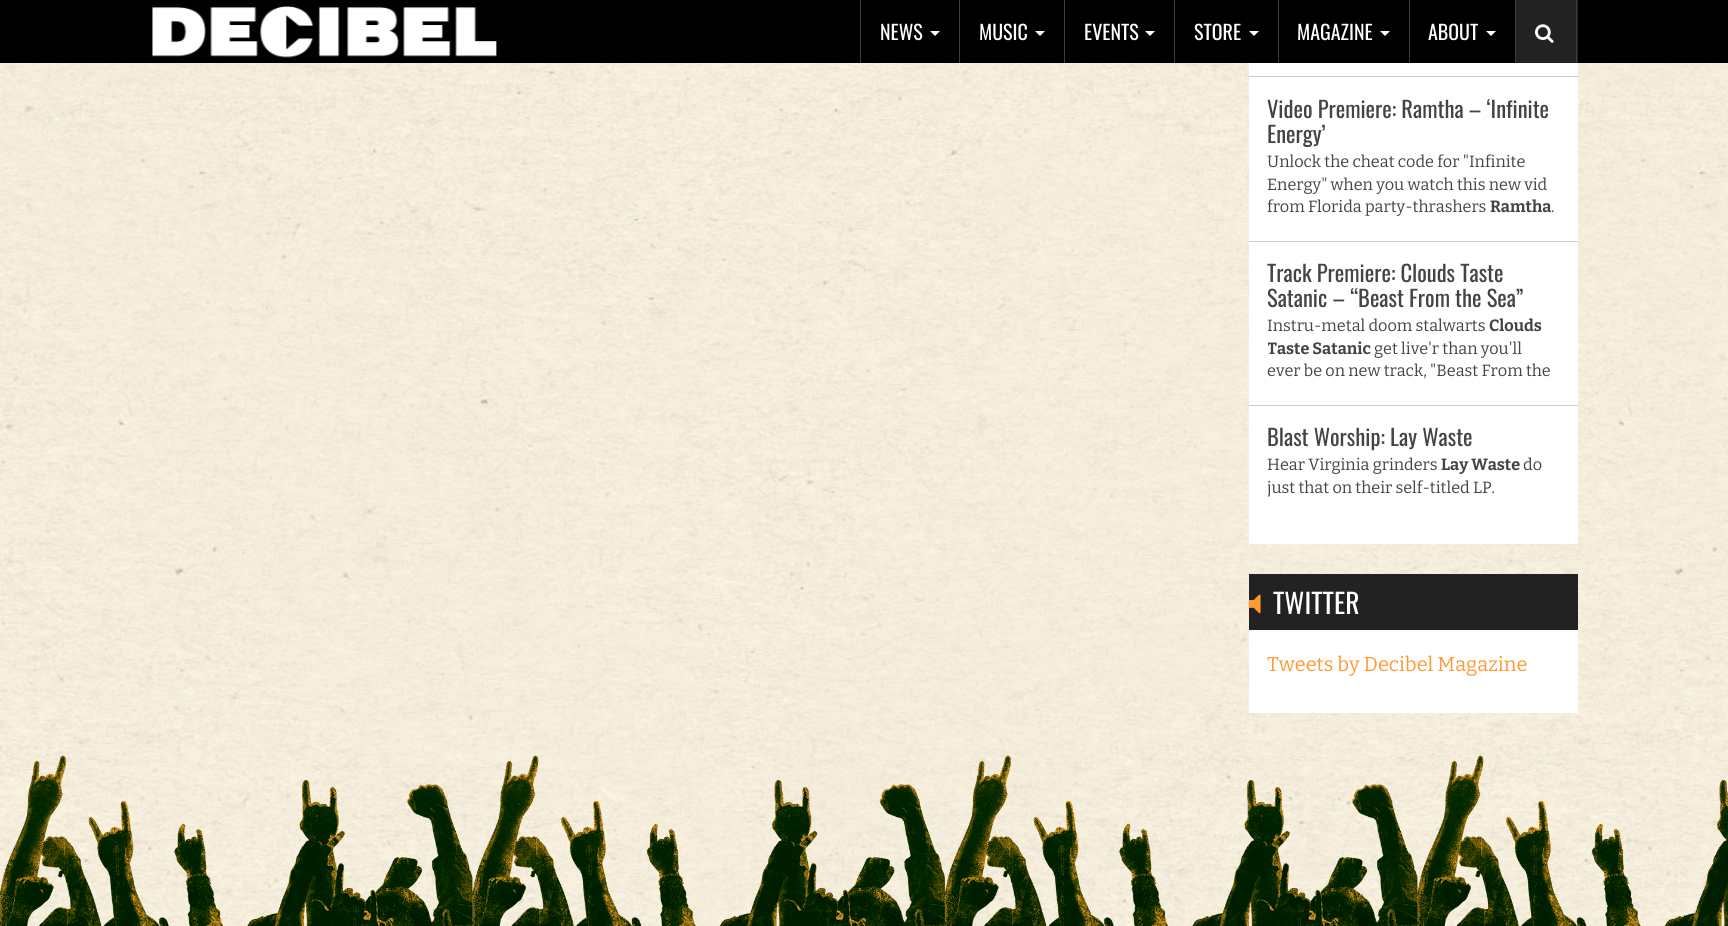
#include <cairo.h>
#include <math.h>
#include <stddef.h>

static cairo_t *ctx;

static void use_color(int r, int g, int b) {
    cairo_set_source_rgb(ctx, r / 255.0, g / 255.0, b / 255.0);
}

static void picture(const char *path, double x, double y, double w, double h) {
    cairo_surface_t *image = cairo_image_surface_create_from_png(path);
    cairo_save(ctx);
    cairo_set_source_surface(ctx, image, x, y);
    cairo_rectangle(ctx, x, y, w, h);
    cairo_fill(ctx);
    cairo_restore(ctx);
    cairo_surface_destroy(image);
}

int main(void) {
    cairo_surface_t *surface = cairo_image_surface_create(CAIRO_FORMAT_RGB24, 1728, 926);
    ctx = cairo_create(surface);
    cairo_font_options_t *options = cairo_font_options_create();
    cairo_font_options_set_hint_metrics(options, CAIRO_HINT_METRICS_OFF);
    cairo_font_options_set_hint_style(options, CAIRO_HINT_STYLE_NONE);
    cairo_set_font_options(ctx, options);
    cairo_set_miter_limit(ctx, 4);
    use_color(255, 255, 255);
    cairo_paint(ctx);
    picture("img1.png", 0, 63, 1728, 863);
    use_color(0, 0, 0);
    cairo_rectangle(ctx, 0, 0, 1728, 63);
    cairo_fill(ctx);
    picture("img2.png", 152, 6, 345, 52);
    use_color(62, 62, 62);
    cairo_rectangle(ctx, 860, 0, 1, 63);
    cairo_fill(ctx);
    cairo_select_font_face(ctx, "Oswald", CAIRO_FONT_SLANT_NORMAL, CAIRO_FONT_WEIGHT_NORMAL);
    cairo_set_font_size(ctx, 20);
    use_color(255, 255, 255);
    cairo_move_to(ctx, 880, 40);
    cairo_show_text(ctx, "NEWS");
    cairo_new_path(ctx);
    cairo_move_to(ctx, 930, 31);
    cairo_line_to(ctx, 940, 31);
    cairo_line_to(ctx, 935, 36);
    cairo_close_path(ctx);
    cairo_fill(ctx);
    use_color(62, 62, 62);
    cairo_rectangle(ctx, 959, 0, 1, 63);
    cairo_fill(ctx);
    use_color(255, 255, 255);
    cairo_move_to(ctx, 979, 40);
    cairo_show_text(ctx, "MUSIC");
    cairo_new_path(ctx);
    cairo_move_to(ctx, 1035, 31);
    cairo_line_to(ctx, 1045, 31);
    cairo_line_to(ctx, 1040, 36);
    cairo_close_path(ctx);
    cairo_fill(ctx);
    use_color(62, 62, 62);
    cairo_rectangle(ctx, 1064, 0, 1, 63);
    cairo_fill(ctx);
    use_color(255, 255, 255);
    cairo_move_to(ctx, 1084, 40);
    cairo_show_text(ctx, "EVENTS");
    cairo_new_path(ctx);
    cairo_move_to(ctx, 1145, 31);
    cairo_line_to(ctx, 1155, 31);
    cairo_line_to(ctx, 1150, 36);
    cairo_close_path(ctx);
    cairo_fill(ctx);
    use_color(62, 62, 62);
    cairo_rectangle(ctx, 1174, 0, 1, 63);
    cairo_fill(ctx);
    use_color(255, 255, 255);
    cairo_move_to(ctx, 1194, 40);
    cairo_show_text(ctx, "STORE");
    cairo_new_path(ctx);
    cairo_move_to(ctx, 1249, 31);
    cairo_line_to(ctx, 1259, 31);
    cairo_line_to(ctx, 1254, 36);
    cairo_close_path(ctx);
    cairo_fill(ctx);
    use_color(62, 62, 62);
    cairo_rectangle(ctx, 1278, 0, 1, 63);
    cairo_fill(ctx);
    use_color(255, 255, 255);
    cairo_move_to(ctx, 1297, 40);
    cairo_show_text(ctx, "MAGAZINE");
    cairo_new_path(ctx);
    cairo_move_to(ctx, 1380, 31);
    cairo_line_to(ctx, 1390, 31);
    cairo_line_to(ctx, 1385, 36);
    cairo_close_path(ctx);
    cairo_fill(ctx);
    use_color(62, 62, 62);
    cairo_rectangle(ctx, 1409, 0, 1, 63);
    cairo_fill(ctx);
    use_color(255, 255, 255);
    cairo_move_to(ctx, 1428, 40);
    cairo_show_text(ctx, "ABOUT");
    cairo_new_path(ctx);
    cairo_move_to(ctx, 1486, 31);
    cairo_line_to(ctx, 1496, 31);
    cairo_line_to(ctx, 1491, 36);
    cairo_close_path(ctx);
    cairo_fill(ctx);
    use_color(34, 34, 34);
    cairo_rectangle(ctx, 1516, 0, 62, 63);
    cairo_fill(ctx);
    use_color(62, 62, 62);
    cairo_rectangle(ctx, 1576, 0, 1, 63);
    cairo_fill(ctx);
    cairo_rectangle(ctx, 1515, 0, 1, 63);
    cairo_fill(ctx);
    picture("img3.png", 1535, 24, 19, 19);
    use_color(255, 255, 255);
    cairo_rectangle(ctx, 1249, 63, 329, 481);
    cairo_fill(ctx);
    use_color(204, 204, 204);
    cairo_rectangle(ctx, 1249, 76, 329, 1);
    cairo_fill(ctx);
    cairo_rectangle(ctx, 1249, 241, 329, 1);
    cairo_fill(ctx);
    cairo_set_font_size(ctx, 22.5);
    use_color(68, 68, 68);
    cairo_move_to(ctx, 1267, 118);
    cairo_show_text(ctx, "Video Premiere: Ramtha – ‘Infinite");
    cairo_move_to(ctx, 1267, 143);
    cairo_show_text(ctx, "Energy’");
    cairo_select_font_face(ctx, "Bitter", CAIRO_FONT_SLANT_NORMAL, CAIRO_FONT_WEIGHT_NORMAL);
    cairo_set_font_size(ctx, 16.25);
    cairo_move_to(ctx, 1267, 167);
    cairo_show_text(ctx, "Unlock the cheat code for \"Infinite");
    cairo_move_to(ctx, 1267, 190);
    cairo_show_text(ctx, "Energy\" when you watch this new vid");
    cairo_move_to(ctx, 1267, 212);
    cairo_show_text(ctx, "from Florida party-thrashers");
    cairo_select_font_face(ctx, "Bitter", CAIRO_FONT_SLANT_NORMAL, CAIRO_FONT_WEIGHT_BOLD);
    cairo_move_to(ctx, 1490, 212);
    cairo_show_text(ctx, "Ramtha");
    cairo_select_font_face(ctx, "Bitter", CAIRO_FONT_SLANT_NORMAL, CAIRO_FONT_WEIGHT_NORMAL);
    cairo_move_to(ctx, 1551, 212);
    cairo_show_text(ctx, ".");
    use_color(204, 204, 204);
    cairo_rectangle(ctx, 1249, 405, 329, 1);
    cairo_fill(ctx);
    cairo_select_font_face(ctx, "Oswald", CAIRO_FONT_SLANT_NORMAL, CAIRO_FONT_WEIGHT_NORMAL);
    cairo_set_font_size(ctx, 22.5);
    use_color(68, 68, 68);
    cairo_move_to(ctx, 1267, 282);
    cairo_show_text(ctx, "Track Premiere: Clouds Taste");
    cairo_move_to(ctx, 1267, 307);
    cairo_show_text(ctx, "Satanic – “Beast From the Sea”");
    cairo_select_font_face(ctx, "Bitter", CAIRO_FONT_SLANT_NORMAL, CAIRO_FONT_WEIGHT_NORMAL);
    cairo_set_font_size(ctx, 16.25);
    cairo_move_to(ctx, 1267, 331);
    cairo_show_text(ctx, "Instru-metal doom stalwarts");
    cairo_select_font_face(ctx, "Bitter", CAIRO_FONT_SLANT_NORMAL, CAIRO_FONT_WEIGHT_BOLD);
    cairo_move_to(ctx, 1489, 331);
    cairo_show_text(ctx, "Clouds");
    cairo_save(ctx);
    cairo_rectangle(ctx, 1268, 315, 291, 71);
    cairo_clip(ctx);
    cairo_move_to(ctx, 1267, 354);
    cairo_show_text(ctx, "Taste Satanic");
    cairo_restore(ctx);
    cairo_select_font_face(ctx, "Bitter", CAIRO_FONT_SLANT_NORMAL, CAIRO_FONT_WEIGHT_NORMAL);
    cairo_move_to(ctx, 1374, 354);
    cairo_show_text(ctx, "get live'r than you'll");
    cairo_move_to(ctx, 1267, 376);
    cairo_show_text(ctx, "ever be on new track, \"Beast From the");
    cairo_select_font_face(ctx, "Oswald", CAIRO_FONT_SLANT_NORMAL, CAIRO_FONT_WEIGHT_NORMAL);
    cairo_set_font_size(ctx, 22.5);
    cairo_move_to(ctx, 1267, 446);
    cairo_show_text(ctx, "Blast Worship: Lay Waste");
    cairo_select_font_face(ctx, "Bitter", CAIRO_FONT_SLANT_NORMAL, CAIRO_FONT_WEIGHT_NORMAL);
    cairo_set_font_size(ctx, 16.25);
    cairo_move_to(ctx, 1267, 470);
    cairo_show_text(ctx, "Hear Virginia grinders");
    cairo_select_font_face(ctx, "Bitter", CAIRO_FONT_SLANT_NORMAL, CAIRO_FONT_WEIGHT_BOLD);
    cairo_move_to(ctx, 1441, 470);
    cairo_show_text(ctx, "Lay Waste");
    cairo_select_font_face(ctx, "Bitter", CAIRO_FONT_SLANT_NORMAL, CAIRO_FONT_WEIGHT_NORMAL);
    cairo_move_to(ctx, 1523, 470);
    cairo_show_text(ctx, "do");
    cairo_save(ctx);
    cairo_rectangle(ctx, 1268, 454, 291, 71);
    cairo_clip(ctx);
    cairo_move_to(ctx, 1267, 493);
    cairo_show_text(ctx, "just that on their self-titled LP.");
    cairo_restore(ctx);
    use_color(255, 255, 255);
    cairo_rectangle(ctx, 1249, 630, 329, 83);
    cairo_fill(ctx);
    use_color(34, 34, 34);
    cairo_rectangle(ctx, 1249, 574, 329, 56);
    cairo_fill(ctx);
    picture("img4.png", 1248, 594, 13, 20);
    cairo_select_font_face(ctx, "Oswald", CAIRO_FONT_SLANT_NORMAL, CAIRO_FONT_WEIGHT_NORMAL);
    cairo_set_font_size(ctx, 27.5);
    use_color(255, 255, 255);
    cairo_move_to(ctx, 1273, 614);
    cairo_show_text(ctx, "TWITTER");
    cairo_select_font_face(ctx, "Bitter", CAIRO_FONT_SLANT_NORMAL, CAIRO_FONT_WEIGHT_NORMAL);
    cairo_set_font_size(ctx, 20);
    use_color(255, 153, 51);
    cairo_move_to(ctx, 1267, 671);
    cairo_show_text(ctx, "Tweets by Decibel Magazine");
    picture("img5.png", 0, 755, 1728, 171);
    cairo_surface_write_to_png(surface, "result.png");
    cairo_font_options_destroy(options);
    cairo_destroy(ctx);
    cairo_surface_destroy(surface);
    return 0;
}
